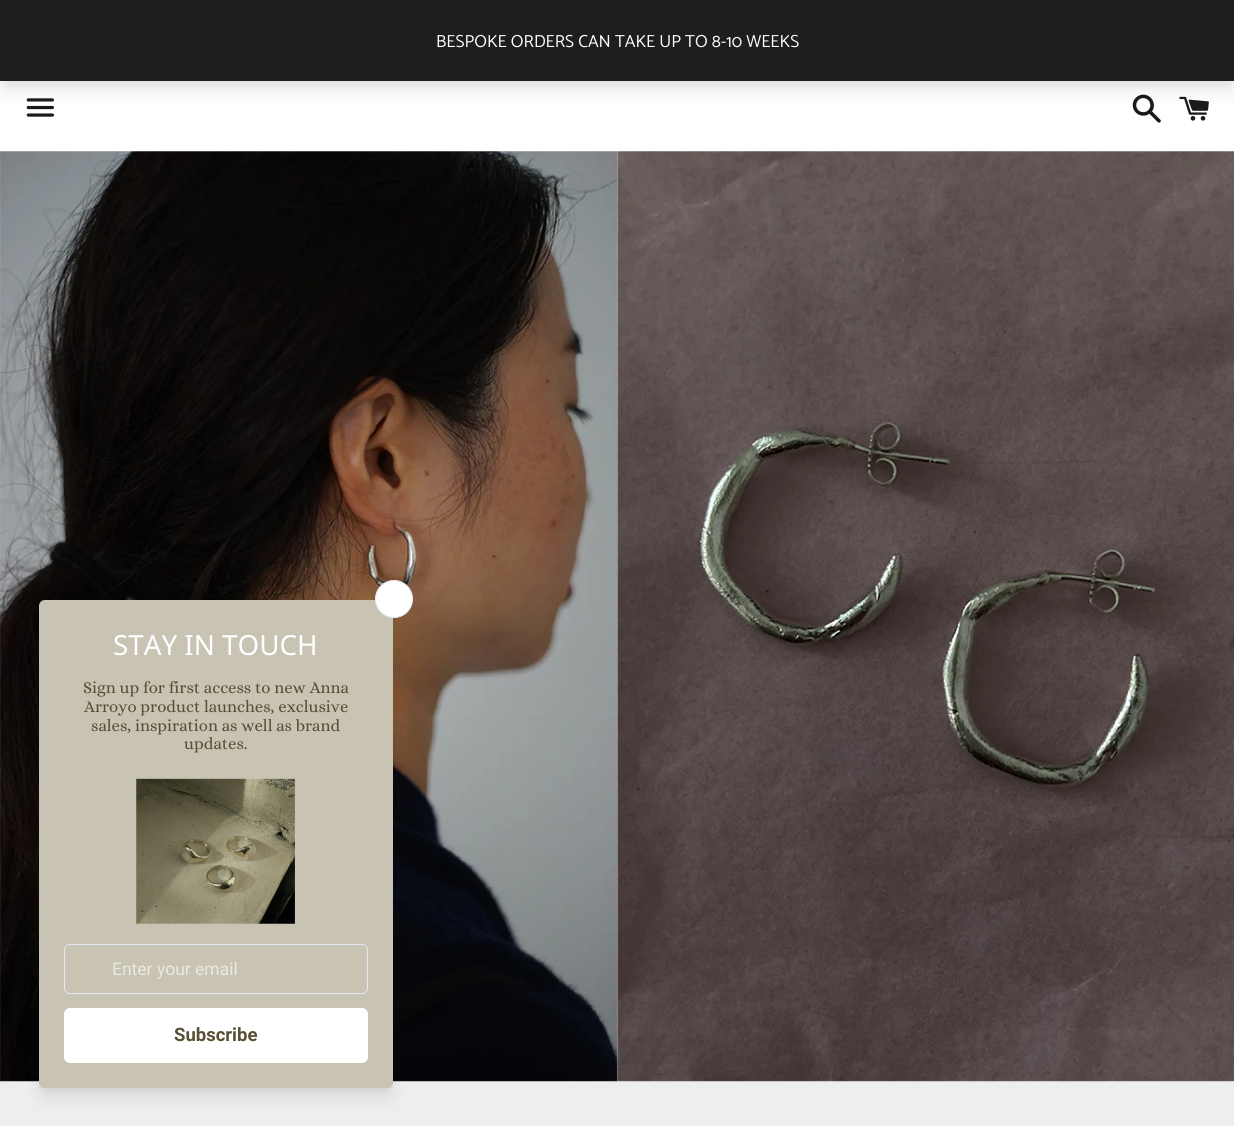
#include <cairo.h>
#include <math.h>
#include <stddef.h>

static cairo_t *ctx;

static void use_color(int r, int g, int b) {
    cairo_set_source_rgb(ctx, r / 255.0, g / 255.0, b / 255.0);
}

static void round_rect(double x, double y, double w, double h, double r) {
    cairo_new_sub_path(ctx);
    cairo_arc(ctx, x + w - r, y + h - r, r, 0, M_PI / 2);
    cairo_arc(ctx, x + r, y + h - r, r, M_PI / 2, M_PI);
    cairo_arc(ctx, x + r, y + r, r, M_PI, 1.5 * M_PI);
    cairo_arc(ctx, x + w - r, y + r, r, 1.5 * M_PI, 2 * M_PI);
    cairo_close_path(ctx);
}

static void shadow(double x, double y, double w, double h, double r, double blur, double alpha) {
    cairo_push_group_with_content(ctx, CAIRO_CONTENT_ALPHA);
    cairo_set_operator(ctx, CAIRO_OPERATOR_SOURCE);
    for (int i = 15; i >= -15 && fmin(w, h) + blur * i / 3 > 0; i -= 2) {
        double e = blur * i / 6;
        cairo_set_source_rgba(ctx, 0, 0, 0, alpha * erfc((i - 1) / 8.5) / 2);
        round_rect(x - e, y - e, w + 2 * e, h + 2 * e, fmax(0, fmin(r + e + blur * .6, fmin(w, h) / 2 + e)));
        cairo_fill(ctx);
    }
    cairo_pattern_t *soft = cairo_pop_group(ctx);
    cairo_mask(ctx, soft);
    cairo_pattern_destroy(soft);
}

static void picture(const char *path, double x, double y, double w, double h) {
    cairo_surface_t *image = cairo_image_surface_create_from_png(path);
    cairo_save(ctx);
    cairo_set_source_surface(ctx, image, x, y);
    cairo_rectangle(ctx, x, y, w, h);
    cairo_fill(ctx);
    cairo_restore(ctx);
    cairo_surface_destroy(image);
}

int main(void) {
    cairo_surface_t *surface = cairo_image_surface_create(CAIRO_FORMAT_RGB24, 1234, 1126);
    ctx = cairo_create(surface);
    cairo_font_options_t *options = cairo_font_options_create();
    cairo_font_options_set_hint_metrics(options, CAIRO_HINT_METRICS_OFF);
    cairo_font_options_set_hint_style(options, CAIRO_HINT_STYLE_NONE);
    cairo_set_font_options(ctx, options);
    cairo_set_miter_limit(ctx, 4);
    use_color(238, 238, 238);
    cairo_paint(ctx);
    use_color(255, 255, 255);
    cairo_rectangle(ctx, 0, 81, 1234, 70);
    cairo_fill(ctx);
    picture("img3.png", 1132, 94, 29, 29);
    picture("img4.png", 1179, 96, 30, 25);
    use_color(0, 0, 0);
    shadow(3, 8, 1230, 76, 0, 4, 0.05);
    picture("img2.png", 26, 98, 28, 19);
    shadow(4, 16, 1227, 74, 0, 9.5, 0.1);
    use_color(30, 30, 29);
    cairo_rectangle(ctx, 0, 0, 1234, 81);
    cairo_fill(ctx);
    cairo_select_font_face(ctx, "Catamaran Thin", CAIRO_FONT_SLANT_NORMAL, CAIRO_FONT_WEIGHT_NORMAL);
    cairo_set_font_size(ctx, 17.5);
    use_color(255, 255, 255);
    cairo_move_to(ctx, 436, 47);
    cairo_show_text(ctx, "BESPOKE ORDERS CAN TAKE UP TO 8-10 WEEKS");
    picture("img5.png", 0, 151, 618, 931);
    use_color(0, 0, 0);
    shadow(41, 608, 349, 482, 4, 4, 0.05);
    shadow(43, 616, 346, 480, 2.5, 9.5, 0.1);
    cairo_save(ctx);
    cairo_rectangle(ctx, 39, 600, 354, 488);
    cairo_clip(ctx);
    shadow(41, 608, 349, 482, 4, 4, 0.05);
    shadow(43, 604, 346, 480, 2.5, 12.5, 0.12);
    cairo_restore(ctx);
    use_color(200, 195, 179);
    round_rect(39, 600, 354, 488, 6);
    cairo_fill(ctx);
    use_color(255, 255, 255);
    cairo_arc(ctx, 394, 599, 18.5, 0, 2 * M_PI);
    cairo_fill_preserve(ctx);
    use_color(226, 232, 240);
    cairo_set_line_width(ctx, 1);
    cairo_stroke(ctx);
    cairo_select_font_face(ctx, "Noto Sans", CAIRO_FONT_SLANT_NORMAL, CAIRO_FONT_WEIGHT_NORMAL);
    cairo_set_font_size(ctx, 27.75);
    use_color(255, 255, 255);
    cairo_move_to(ctx, 113, 655);
    cairo_show_text(ctx, "STAY IN TOUCH");
    cairo_select_font_face(ctx, "Alice", CAIRO_FONT_SLANT_NORMAL, CAIRO_FONT_WEIGHT_NORMAL);
    cairo_set_font_size(ctx, 16.7);
    use_color(88, 80, 53);
    cairo_move_to(ctx, 83, 693);
    cairo_show_text(ctx, "Sign up for first access to new Anna");
    cairo_move_to(ctx, 84, 712);
    cairo_show_text(ctx, "Arroyo product launches, exclusive");
    cairo_move_to(ctx, 91, 731);
    cairo_show_text(ctx, "sales, inspiration as well as brand");
    cairo_move_to(ctx, 184, 749);
    cairo_show_text(ctx, "updates.");
    picture("img1.png", 136, 778, 159, 146);
    round_rect(64.5, 944.5, 303, 49, 5.5);
    use_color(226, 232, 240);
    cairo_stroke(ctx);
    cairo_select_font_face(ctx, "Roboto", CAIRO_FONT_SLANT_NORMAL, CAIRO_FONT_WEIGHT_NORMAL);
    cairo_set_font_size(ctx, 17.5);
    use_color(234, 232, 226);
    cairo_move_to(ctx, 112, 975);
    cairo_show_text(ctx, "Enter your email");
    use_color(255, 255, 255);
    round_rect(64, 1008, 304, 55, 6);
    cairo_fill(ctx);
    cairo_select_font_face(ctx, "Roboto", CAIRO_FONT_SLANT_NORMAL, CAIRO_FONT_WEIGHT_BOLD);
    cairo_set_font_size(ctx, 18.5);
    use_color(88, 80, 53);
    cairo_move_to(ctx, 174, 1041);
    cairo_show_text(ctx, "Subscribe");
    picture("img6.png", 617, 151, 617, 931);
    cairo_surface_write_to_png(surface, "result.png");
    cairo_font_options_destroy(options);
    cairo_destroy(ctx);
    cairo_surface_destroy(surface);
    return 0;
}
